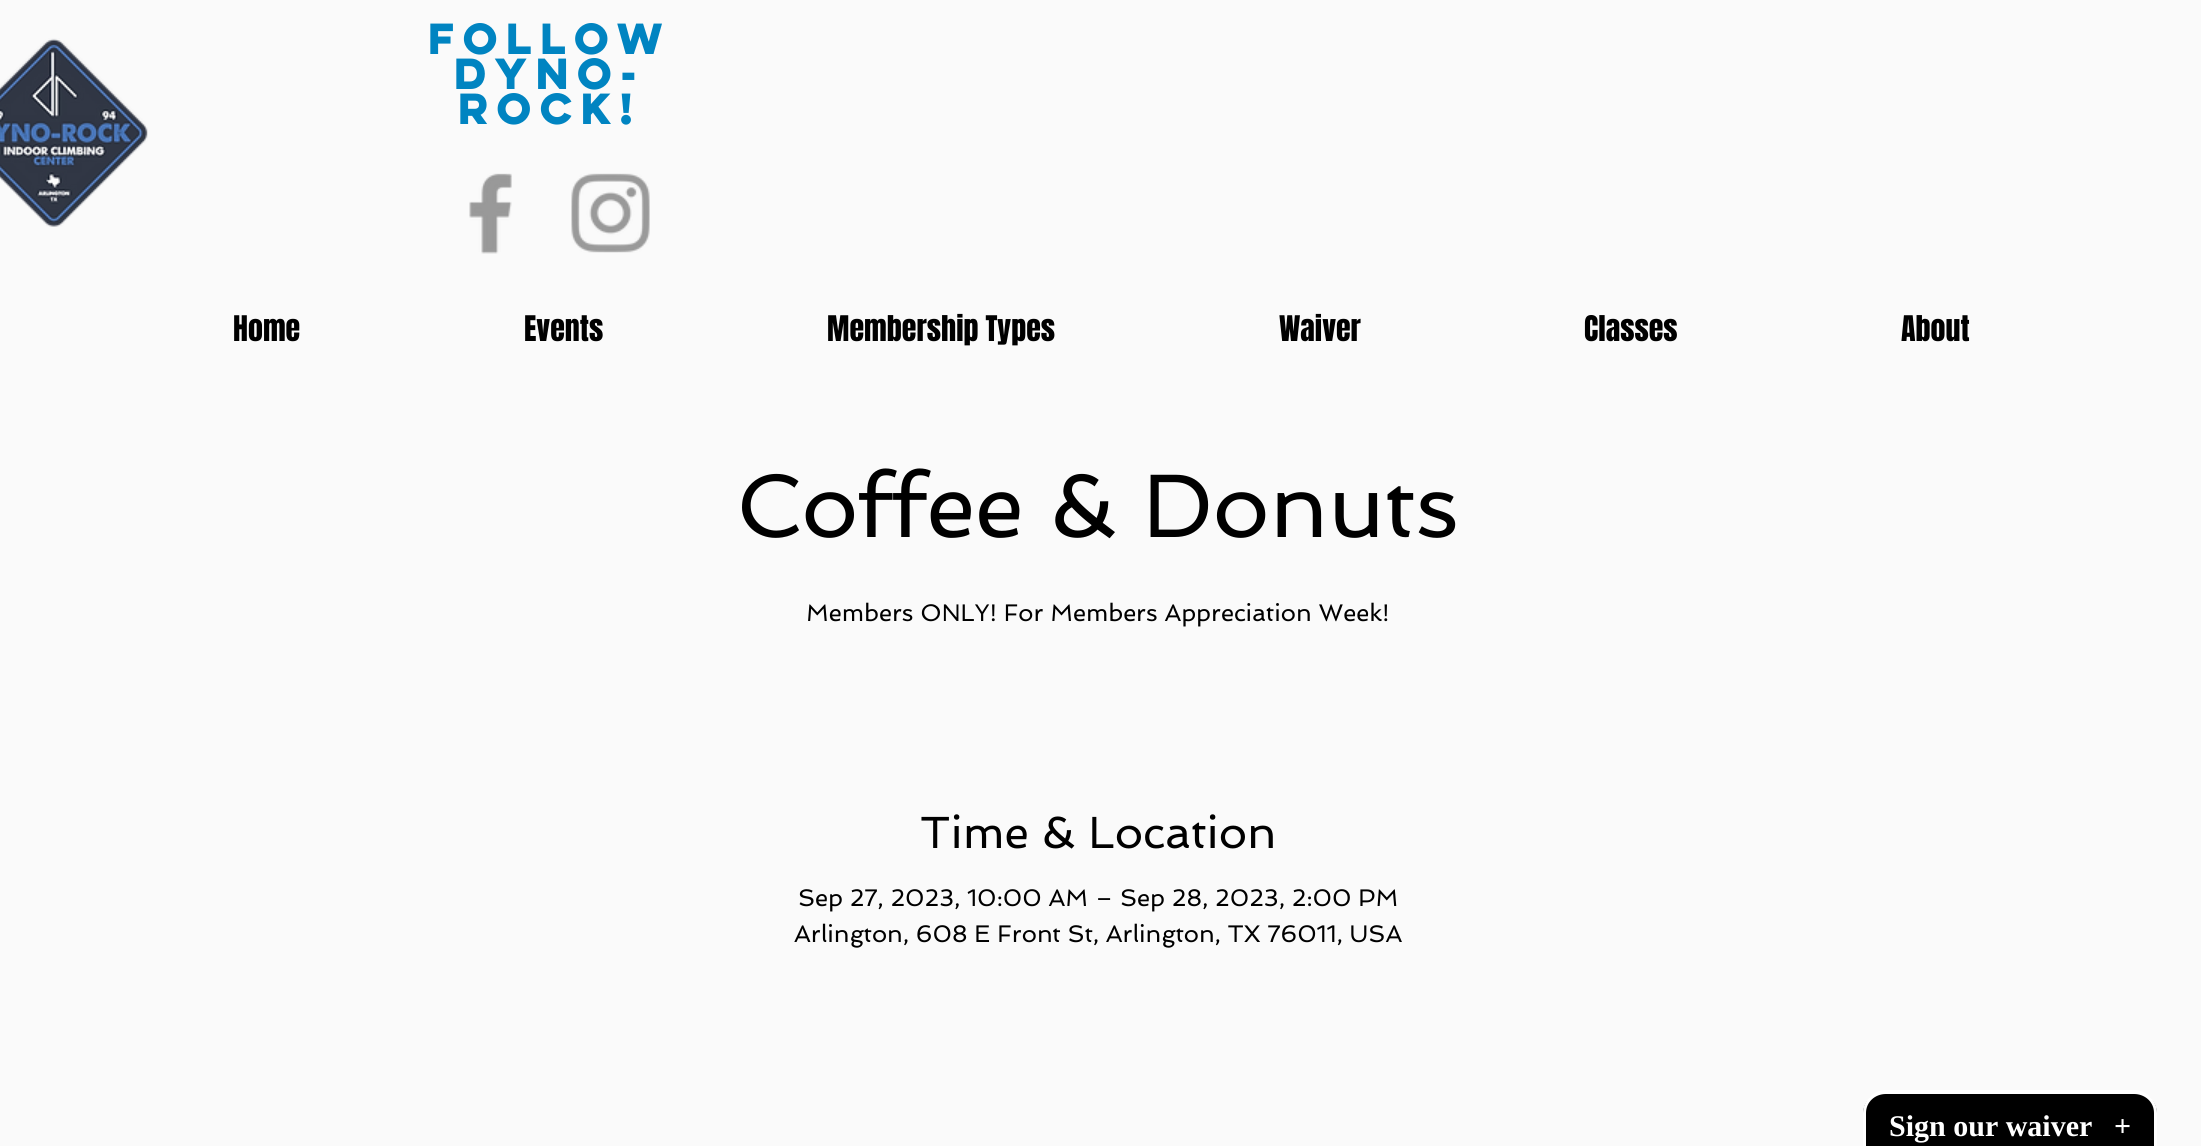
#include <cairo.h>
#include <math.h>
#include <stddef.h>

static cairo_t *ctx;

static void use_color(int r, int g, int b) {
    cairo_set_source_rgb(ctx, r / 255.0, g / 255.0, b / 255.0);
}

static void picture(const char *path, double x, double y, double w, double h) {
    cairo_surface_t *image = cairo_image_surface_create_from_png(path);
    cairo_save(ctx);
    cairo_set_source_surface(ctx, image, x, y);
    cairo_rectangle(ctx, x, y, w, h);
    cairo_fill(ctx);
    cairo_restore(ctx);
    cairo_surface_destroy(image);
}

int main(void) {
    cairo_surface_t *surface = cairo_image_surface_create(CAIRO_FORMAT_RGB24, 2201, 1146);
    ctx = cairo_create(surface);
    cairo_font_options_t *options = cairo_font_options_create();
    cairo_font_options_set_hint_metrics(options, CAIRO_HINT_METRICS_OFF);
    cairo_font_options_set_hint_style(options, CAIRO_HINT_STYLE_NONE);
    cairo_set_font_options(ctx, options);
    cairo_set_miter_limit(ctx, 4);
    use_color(250, 250, 250);
    cairo_paint(ctx);
    picture("img1.png", 0, 38, 148, 189);
    cairo_select_font_face(ctx, "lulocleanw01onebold", CAIRO_FONT_SLANT_NORMAL, CAIRO_FONT_WEIGHT_BOLD);
    cairo_set_font_size(ctx, 39);
    use_color(0, 132, 193);
    cairo_move_to(ctx, 428, 54);
    cairo_show_text(ctx, "FOLLOW");
    cairo_move_to(ctx, 454, 89);
    cairo_show_text(ctx, "Dyno-");
    cairo_move_to(ctx, 458, 124);
    cairo_show_text(ctx, "Rock!");
    picture("img2.png", 469, 173, 43, 81);
    picture("img3.png", 571, 173, 79, 80);
    cairo_select_font_face(ctx, "Anton", CAIRO_FONT_SLANT_NORMAL, CAIRO_FONT_WEIGHT_NORMAL);
    cairo_set_font_size(ctx, 30);
    use_color(0, 0, 0);
    cairo_move_to(ctx, 233, 341);
    cairo_show_text(ctx, "Home");
    cairo_move_to(ctx, 524, 341);
    cairo_show_text(ctx, "Events");
    cairo_move_to(ctx, 827, 341);
    cairo_show_text(ctx, "Membership Types");
    cairo_move_to(ctx, 1279, 341);
    cairo_show_text(ctx, "Waiver");
    cairo_move_to(ctx, 1584, 341);
    cairo_show_text(ctx, "Classes");
    cairo_move_to(ctx, 1901, 341);
    cairo_show_text(ctx, "About");
    cairo_select_font_face(ctx, "Spinnaker", CAIRO_FONT_SLANT_NORMAL, CAIRO_FONT_WEIGHT_NORMAL);
    cairo_set_font_size(ctx, 90);
    cairo_move_to(ctx, 736, 537);
    cairo_show_text(ctx, "Coffee & Donuts");
    cairo_set_font_size(ctx, 24);
    cairo_move_to(ctx, 806, 621);
    cairo_show_text(ctx, "Members ONLY! For Members Appreciation Week!");
    cairo_set_font_size(ctx, 45);
    cairo_move_to(ctx, 920, 848);
    cairo_show_text(ctx, "Time & Location");
    cairo_set_font_size(ctx, 24);
    cairo_move_to(ctx, 798, 906);
    cairo_show_text(ctx, "Sep 27, 2023, 10:00 AM – Sep 28, 2023, 2:00 PM");
    cairo_move_to(ctx, 794, 942);
    cairo_show_text(ctx, "Arlington, 608 E Front St, Arlington, TX 76011, USA");
    cairo_new_path(ctx);
    cairo_move_to(ctx, 1886, 1091);
    cairo_line_to(ctx, 2134, 1091);
    cairo_curve_to(ctx, 2146.5, 1091, 2157, 1101.5, 2157, 1114);
    cairo_line_to(ctx, 2157, 1146);
    cairo_line_to(ctx, 1863, 1146);
    cairo_line_to(ctx, 1863, 1114);
    cairo_curve_to(ctx, 1863, 1101.5, 1873.5, 1091, 1886, 1091);
    cairo_close_path(ctx);
    cairo_fill(ctx);
    use_color(255, 255, 255);
    cairo_set_fill_rule(ctx, CAIRO_FILL_RULE_EVEN_ODD);
    cairo_new_path(ctx);
    cairo_move_to(ctx, 1886, 1090);
    cairo_line_to(ctx, 2134, 1090);
    cairo_curve_to(ctx, 2147, 1090, 2157, 1101, 2157, 1113);
    cairo_line_to(ctx, 2157, 1146);
    cairo_line_to(ctx, 1863, 1146);
    cairo_line_to(ctx, 1863, 1113);
    cairo_curve_to(ctx, 1863, 1101, 1873, 1090, 1886, 1090);
    cairo_close_path(ctx);
    cairo_move_to(ctx, 1886, 1094);
    cairo_line_to(ctx, 2134, 1094);
    cairo_curve_to(ctx, 2145, 1094, 2154, 1102, 2154, 1113);
    cairo_line_to(ctx, 2154, 1146);
    cairo_line_to(ctx, 1866, 1146);
    cairo_line_to(ctx, 1866, 1113);
    cairo_curve_to(ctx, 1866, 1102, 1875, 1094, 1886, 1094);
    cairo_close_path(ctx);
    cairo_fill(ctx);
    cairo_select_font_face(ctx, "Liberation Serif", CAIRO_FONT_SLANT_NORMAL, CAIRO_FONT_WEIGHT_BOLD);
    cairo_set_font_size(ctx, 30);
    cairo_move_to(ctx, 1889, 1136);
    cairo_show_text(ctx, "Sign our waiver");
    cairo_move_to(ctx, 2114, 1136);
    cairo_show_text(ctx, "+");
    cairo_surface_write_to_png(surface, "result.png");
    cairo_font_options_destroy(options);
    cairo_destroy(ctx);
    cairo_surface_destroy(surface);
    return 0;
}
